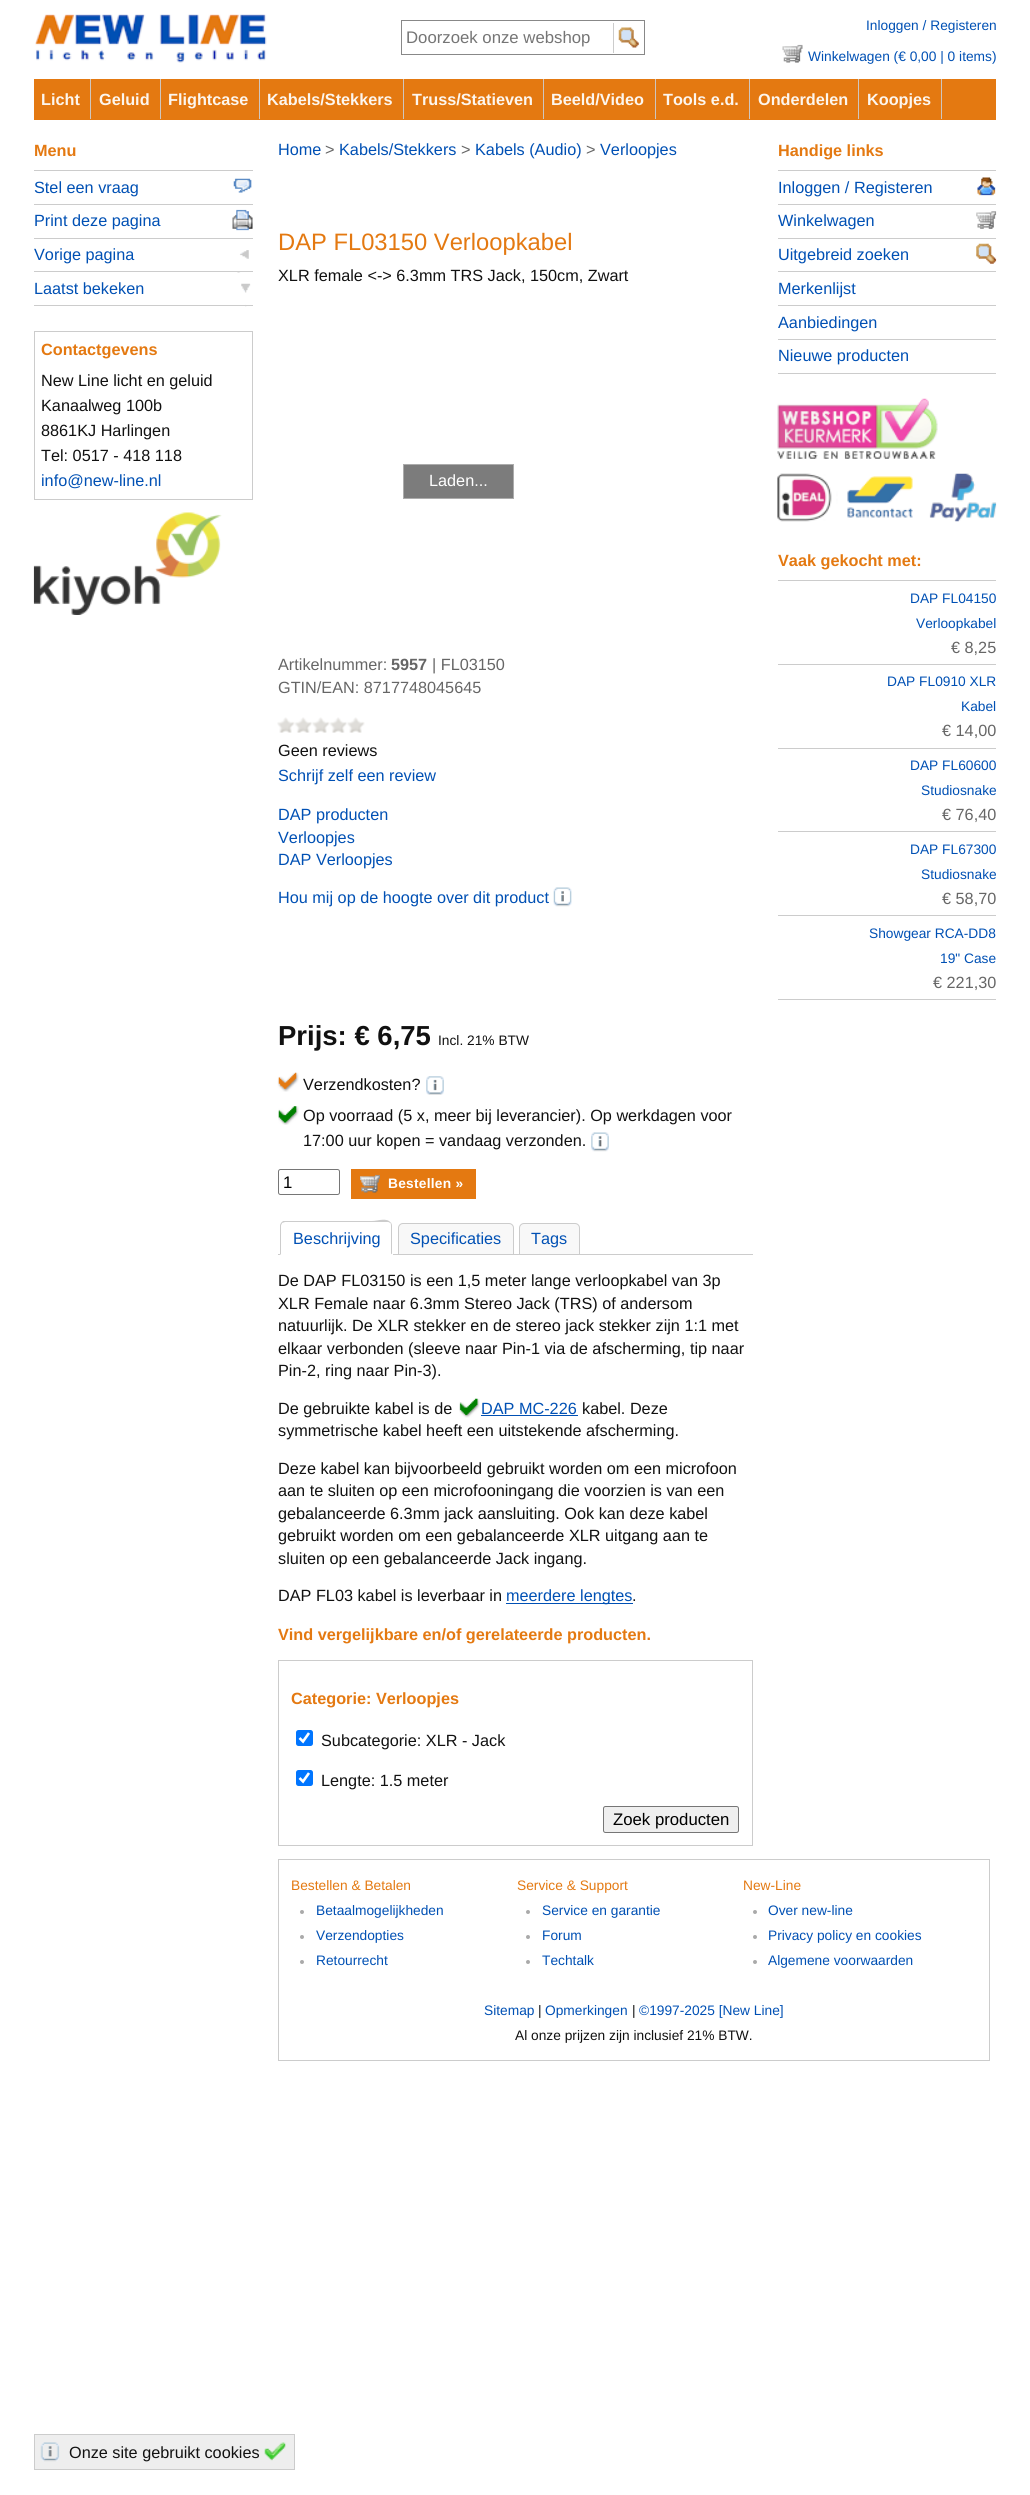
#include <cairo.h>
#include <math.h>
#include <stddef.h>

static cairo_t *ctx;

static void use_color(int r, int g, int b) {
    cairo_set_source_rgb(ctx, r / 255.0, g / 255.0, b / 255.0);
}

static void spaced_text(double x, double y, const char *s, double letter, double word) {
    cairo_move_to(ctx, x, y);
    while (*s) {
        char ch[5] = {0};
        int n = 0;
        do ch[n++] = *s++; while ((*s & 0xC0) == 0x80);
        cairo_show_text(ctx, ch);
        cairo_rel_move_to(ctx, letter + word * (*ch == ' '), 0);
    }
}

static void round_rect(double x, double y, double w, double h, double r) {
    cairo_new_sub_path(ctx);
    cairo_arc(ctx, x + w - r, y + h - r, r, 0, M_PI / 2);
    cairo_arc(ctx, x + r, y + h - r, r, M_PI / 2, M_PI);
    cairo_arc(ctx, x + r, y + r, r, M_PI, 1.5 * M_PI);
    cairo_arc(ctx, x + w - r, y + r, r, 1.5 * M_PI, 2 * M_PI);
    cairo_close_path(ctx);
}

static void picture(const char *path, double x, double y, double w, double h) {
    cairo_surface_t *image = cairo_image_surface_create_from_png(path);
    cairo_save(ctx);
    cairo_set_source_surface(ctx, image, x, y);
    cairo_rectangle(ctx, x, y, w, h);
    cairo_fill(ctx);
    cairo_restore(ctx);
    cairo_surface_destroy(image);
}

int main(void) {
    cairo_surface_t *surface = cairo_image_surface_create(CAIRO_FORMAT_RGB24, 1030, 2495);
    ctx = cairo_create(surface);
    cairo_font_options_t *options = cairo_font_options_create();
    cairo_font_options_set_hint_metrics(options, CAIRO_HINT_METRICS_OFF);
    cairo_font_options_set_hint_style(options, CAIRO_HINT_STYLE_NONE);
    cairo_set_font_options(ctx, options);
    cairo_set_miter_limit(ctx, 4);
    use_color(255, 255, 255);
    cairo_paint(ctx);
    picture("img1.png", 35, 14, 232, 49);
    cairo_rectangle(ctx, 401.5, 20.5, 243, 34);
    use_color(136, 136, 136);
    cairo_set_line_width(ctx, 1);
    cairo_stroke(ctx);
    cairo_select_font_face(ctx, "Liberation Sans", CAIRO_FONT_SLANT_NORMAL, CAIRO_FONT_WEIGHT_NORMAL);
    cairo_set_font_size(ctx, 16.75);
    use_color(117, 117, 117);
    cairo_move_to(ctx, 406, 43);
    cairo_show_text(ctx, "Doorzoek onze webshop");
    picture("img2.png", 618, 27, 21, 21);
    use_color(204, 204, 204);
    cairo_rectangle(ctx, 613, 23, 1, 30);
    cairo_fill(ctx);
    cairo_set_font_size(ctx, 13.75);
    use_color(0, 80, 180);
    cairo_move_to(ctx, 866, 30);
    cairo_show_text(ctx, "Inloggen / Registeren");
    picture("img3.png", 782, 44, 21, 19);
    cairo_move_to(ctx, 808, 61);
    cairo_show_text(ctx, "Winkelwagen (€ 0,00 | 0 items)");
    use_color(228, 121, 17);
    cairo_rectangle(ctx, 34, 79, 962, 41);
    cairo_fill(ctx);
    use_color(206, 198, 191);
    cairo_rectangle(ctx, 90, 79, 1, 40);
    cairo_fill(ctx);
    cairo_select_font_face(ctx, "Liberation Sans", CAIRO_FONT_SLANT_NORMAL, CAIRO_FONT_WEIGHT_BOLD);
    cairo_set_font_size(ctx, 16.25);
    use_color(253, 246, 238);
    cairo_move_to(ctx, 41, 105);
    cairo_show_text(ctx, "Licht");
    use_color(206, 198, 191);
    cairo_rectangle(ctx, 160, 79, 1, 40);
    cairo_fill(ctx);
    use_color(253, 246, 238);
    cairo_move_to(ctx, 99, 105);
    cairo_show_text(ctx, "Geluid");
    use_color(206, 198, 191);
    cairo_rectangle(ctx, 259, 79, 1, 40);
    cairo_fill(ctx);
    use_color(253, 246, 238);
    cairo_move_to(ctx, 168, 105);
    cairo_show_text(ctx, "Flightcase");
    use_color(206, 198, 191);
    cairo_rectangle(ctx, 403, 79, 1, 40);
    cairo_fill(ctx);
    use_color(253, 246, 238);
    cairo_move_to(ctx, 267, 105);
    cairo_show_text(ctx, "Kabels/Stekkers");
    use_color(206, 198, 191);
    cairo_rectangle(ctx, 543, 79, 1, 40);
    cairo_fill(ctx);
    use_color(253, 246, 238);
    cairo_move_to(ctx, 412, 105);
    cairo_show_text(ctx, "Truss/Statieven");
    use_color(206, 198, 191);
    cairo_rectangle(ctx, 655, 79, 1, 40);
    cairo_fill(ctx);
    use_color(253, 246, 238);
    cairo_move_to(ctx, 551, 105);
    cairo_show_text(ctx, "Beeld/Video");
    use_color(206, 198, 191);
    cairo_rectangle(ctx, 749, 79, 1, 40);
    cairo_fill(ctx);
    use_color(253, 246, 238);
    cairo_move_to(ctx, 663, 105);
    cairo_show_text(ctx, "Tools e.d.");
    use_color(206, 198, 191);
    cairo_rectangle(ctx, 858, 79, 1, 40);
    cairo_fill(ctx);
    use_color(253, 246, 238);
    cairo_move_to(ctx, 758, 105);
    cairo_show_text(ctx, "Onderdelen");
    use_color(206, 198, 191);
    cairo_rectangle(ctx, 941, 79, 1, 40);
    cairo_fill(ctx);
    use_color(253, 246, 238);
    cairo_move_to(ctx, 867, 105);
    cairo_show_text(ctx, "Koopjes");
    use_color(204, 204, 204);
    cairo_rectangle(ctx, 34, 170, 219, 1);
    cairo_fill(ctx);
    use_color(228, 121, 17);
    cairo_move_to(ctx, 34, 156);
    cairo_show_text(ctx, "Menu");
    picture("img4.png", 233, 178, 19, 15);
    use_color(204, 204, 204);
    cairo_rectangle(ctx, 34, 204, 219, 1);
    cairo_fill(ctx);
    cairo_select_font_face(ctx, "Liberation Sans", CAIRO_FONT_SLANT_NORMAL, CAIRO_FONT_WEIGHT_NORMAL);
    use_color(0, 80, 180);
    cairo_move_to(ctx, 34, 193);
    cairo_show_text(ctx, "Stel een vraag");
    picture("img5.png", 232, 209, 21, 22);
    use_color(204, 204, 204);
    cairo_rectangle(ctx, 34, 238, 219, 1);
    cairo_fill(ctx);
    use_color(0, 80, 180);
    cairo_move_to(ctx, 34, 226);
    cairo_show_text(ctx, "Print deze pagina");
    picture("img6.png", 237, 250, 12, 23);
    use_color(204, 204, 204);
    cairo_rectangle(ctx, 34, 271, 219, 1);
    cairo_fill(ctx);
    use_color(0, 80, 180);
    cairo_move_to(ctx, 34, 260);
    cairo_show_text(ctx, "Vorige pagina");
    picture("img7.png", 241, 283, 10, 24);
    use_color(204, 204, 204);
    cairo_rectangle(ctx, 34, 305, 219, 1);
    cairo_fill(ctx);
    use_color(0, 80, 180);
    cairo_move_to(ctx, 34, 294);
    cairo_show_text(ctx, "Laatst bekeken");
    cairo_rectangle(ctx, 34.5, 331.5, 218, 168);
    use_color(204, 204, 204);
    cairo_stroke(ctx);
    cairo_select_font_face(ctx, "Liberation Sans", CAIRO_FONT_SLANT_NORMAL, CAIRO_FONT_WEIGHT_BOLD);
    use_color(228, 121, 17);
    cairo_move_to(ctx, 41, 355);
    cairo_show_text(ctx, "Contactgevens");
    cairo_select_font_face(ctx, "Liberation Sans", CAIRO_FONT_SLANT_NORMAL, CAIRO_FONT_WEIGHT_NORMAL);
    use_color(17, 17, 17);
    cairo_move_to(ctx, 41, 386);
    cairo_show_text(ctx, "New Line licht en geluid");
    cairo_move_to(ctx, 41, 411);
    cairo_show_text(ctx, "Kanaalweg 100b");
    cairo_move_to(ctx, 41, 436);
    cairo_show_text(ctx, "8861KJ Harlingen");
    cairo_move_to(ctx, 41, 461);
    cairo_show_text(ctx, "Tel: 0517 - 418 118");
    use_color(0, 80, 180);
    cairo_move_to(ctx, 41, 486);
    cairo_show_text(ctx, "info@new-line.nl");
    picture("img8.png", 33, 512, 189, 103);
    cairo_move_to(ctx, 278, 155);
    cairo_show_text(ctx, "Home");
    use_color(102, 102, 102);
    cairo_move_to(ctx, 325, 155);
    cairo_show_text(ctx, ">");
    use_color(0, 80, 180);
    cairo_move_to(ctx, 339, 155);
    cairo_show_text(ctx, "Kabels/Stekkers");
    use_color(102, 102, 102);
    cairo_move_to(ctx, 461, 155);
    cairo_show_text(ctx, ">");
    use_color(0, 80, 180);
    cairo_move_to(ctx, 475, 155);
    cairo_show_text(ctx, "Kabels (Audio)");
    use_color(102, 102, 102);
    cairo_move_to(ctx, 586, 155);
    cairo_show_text(ctx, ">");
    use_color(0, 80, 180);
    cairo_move_to(ctx, 600, 155);
    cairo_show_text(ctx, "Verloopjes");
    cairo_set_font_size(ctx, 23.75);
    use_color(228, 121, 17);
    cairo_move_to(ctx, 278, 250);
    cairo_show_text(ctx, "DAP FL03150 Verloopkabel");
    cairo_set_font_size(ctx, 16.25);
    use_color(17, 17, 17);
    cairo_move_to(ctx, 278, 281);
    cairo_show_text(ctx, "XLR female <-> 6.3mm TRS Jack, 150cm, Zwart");
    use_color(124, 124, 124);
    cairo_rectangle(ctx, 403.5, 464.5, 110, 34);
    cairo_fill_preserve(ctx);
    use_color(172, 172, 172);
    cairo_stroke(ctx);
    use_color(255, 255, 255);
    cairo_move_to(ctx, 429, 486);
    cairo_show_text(ctx, "Laden...");
    use_color(102, 102, 102);
    cairo_move_to(ctx, 278, 670);
    cairo_show_text(ctx, "Artikelnummer:");
    cairo_select_font_face(ctx, "Liberation Sans", CAIRO_FONT_SLANT_NORMAL, CAIRO_FONT_WEIGHT_BOLD);
    cairo_move_to(ctx, 391, 670);
    cairo_show_text(ctx, "5957");
    cairo_select_font_face(ctx, "Liberation Sans", CAIRO_FONT_SLANT_NORMAL, CAIRO_FONT_WEIGHT_NORMAL);
    cairo_move_to(ctx, 432, 670);
    cairo_show_text(ctx, "| FL03150");
    cairo_move_to(ctx, 278, 693);
    cairo_show_text(ctx, "GTIN/EAN: 8717748045645");
    picture("img9.png", 277, 717, 88, 16);
    use_color(17, 17, 17);
    cairo_move_to(ctx, 278, 756);
    cairo_show_text(ctx, "Geen reviews");
    use_color(0, 80, 180);
    cairo_move_to(ctx, 278, 781);
    cairo_show_text(ctx, "Schrijf zelf een review");
    cairo_move_to(ctx, 278, 820);
    cairo_show_text(ctx, "DAP producten");
    cairo_move_to(ctx, 278, 843);
    cairo_show_text(ctx, "Verloopjes");
    cairo_move_to(ctx, 278, 865);
    cairo_show_text(ctx, "DAP Verloopjes");
    cairo_move_to(ctx, 278, 903);
    cairo_show_text(ctx, "Hou mij op de hoogte over dit product");
    picture("img10.png", 553, 887, 19, 20);
    cairo_select_font_face(ctx, "Liberation Sans", CAIRO_FONT_SLANT_NORMAL, CAIRO_FONT_WEIGHT_BOLD);
    cairo_set_font_size(ctx, 27.5);
    use_color(17, 17, 17);
    cairo_move_to(ctx, 278, 1045);
    cairo_show_text(ctx, "Prijs: € 6,75");
    cairo_select_font_face(ctx, "Liberation Sans", CAIRO_FONT_SLANT_NORMAL, CAIRO_FONT_WEIGHT_NORMAL);
    cairo_set_font_size(ctx, 13.75);
    cairo_move_to(ctx, 438, 1045);
    cairo_show_text(ctx, "Incl. 21% BTW");
    picture("img11.png", 277, 1072, 22, 20);
    cairo_set_font_size(ctx, 16.25);
    cairo_move_to(ctx, 303, 1090);
    cairo_show_text(ctx, "Verzendkosten?");
    picture("img12.png", 426, 1076, 18, 19);
    picture("img13.png", 278, 1106, 21, 19);
    cairo_move_to(ctx, 303, 1121);
    cairo_show_text(ctx, "Op voorraad (5 x, meer bij leverancier). Op werkdagen voor");
    cairo_move_to(ctx, 303, 1146);
    cairo_show_text(ctx, "17:00 uur kopen = vandaag verzonden.");
    picture("img14.png", 591, 1132, 18, 20);
    round_rect(278.5, 1169.5, 61, 25, 2);
    use_color(118, 118, 118);
    cairo_stroke(ctx);
    cairo_set_font_size(ctx, 16.75);
    use_color(0, 0, 0);
    cairo_move_to(ctx, 283, 1188);
    cairo_show_text(ctx, "1");
    use_color(228, 121, 17);
    cairo_rectangle(ctx, 351, 1169, 125, 30);
    cairo_fill(ctx);
    picture("img15.png", 360, 1174, 20, 19);
    cairo_select_font_face(ctx, "Liberation Sans", CAIRO_FONT_SLANT_NORMAL, CAIRO_FONT_WEIGHT_BOLD);
    cairo_set_font_size(ctx, 13.75);
    use_color(255, 255, 255);
    spaced_text(388, 1188, "Bestellen »", 0.25, 0);
    use_color(204, 204, 204);
    cairo_rectangle(ctx, 278, 1254, 475, 1);
    cairo_fill(ctx);
    use_color(255, 255, 255);
    cairo_new_path(ctx);
    cairo_move_to(ctx, 285, 1221);
    cairo_line_to(ctx, 388, 1221);
    cairo_curve_to(ctx, 391, 1221, 393, 1223, 393, 1226);
    cairo_line_to(ctx, 393, 1255);
    cairo_line_to(ctx, 280, 1255);
    cairo_line_to(ctx, 280, 1226);
    cairo_curve_to(ctx, 280, 1223, 282, 1221, 285, 1221);
    cairo_close_path(ctx);
    cairo_fill(ctx);
    use_color(204, 204, 204);
    cairo_new_path(ctx);
    cairo_move_to(ctx, 285, 1222);
    cairo_line_to(ctx, 282, 1223);
    cairo_line_to(ctx, 281, 1223);
    cairo_line_to(ctx, 283, 1221);
    cairo_line_to(ctx, 372, 1221);
    cairo_curve_to(ctx, 378, 1221, 387, 1217, 391, 1223);
    cairo_line_to(ctx, 390, 1223);
    cairo_curve_to(ctx, 390, 1223, 389, 1222, 388, 1222);
    cairo_close_path(ctx);
    cairo_fill(ctx);
    cairo_new_path(ctx);
    cairo_move_to(ctx, 391, 1222.5);
    cairo_curve_to(ctx, 391.5, 1223.5, 392, 1224.5, 392, 1226);
    cairo_line_to(ctx, 392, 1254.5);
    cairo_line_to(ctx, 391, 1253.5);
    cairo_line_to(ctx, 391, 1226);
    cairo_curve_to(ctx, 391, 1225, 391, 1224, 390.5, 1223.5);
    cairo_close_path(ctx);
    cairo_fill(ctx);
    use_color(255, 255, 255);
    cairo_new_path(ctx);
    cairo_move_to(ctx, 392, 1255);
    cairo_line_to(ctx, 391, 1254);
    cairo_line_to(ctx, 281, 1254);
    cairo_line_to(ctx, 280, 1255);
    cairo_close_path(ctx);
    cairo_fill(ctx);
    use_color(204, 204, 204);
    cairo_new_path(ctx);
    cairo_move_to(ctx, 280, 1255);
    cairo_line_to(ctx, 281, 1254);
    cairo_line_to(ctx, 281, 1226);
    cairo_curve_to(ctx, 281, 1225, 281.5, 1224, 282, 1223.5);
    cairo_line_to(ctx, 281.5, 1222.5);
    cairo_curve_to(ctx, 280.5, 1223.5, 280, 1224.5, 280, 1226);
    cairo_close_path(ctx);
    cairo_fill(ctx);
    cairo_select_font_face(ctx, "Liberation Sans", CAIRO_FONT_SLANT_NORMAL, CAIRO_FONT_WEIGHT_NORMAL);
    cairo_set_font_size(ctx, 16.25);
    use_color(0, 80, 180);
    cairo_move_to(ctx, 293, 1244);
    cairo_show_text(ctx, "Beschrijving");
    use_color(248, 248, 248);
    cairo_new_path(ctx);
    cairo_move_to(ctx, 403, 1223.5);
    cairo_line_to(ctx, 509, 1223.5);
    cairo_curve_to(ctx, 511.5, 1223.5, 513.5, 1225.5, 513.5, 1228);
    cairo_line_to(ctx, 513.5, 1254.5);
    cairo_line_to(ctx, 398.5, 1254.5);
    cairo_line_to(ctx, 398.5, 1228);
    cairo_curve_to(ctx, 398.5, 1225.5, 400.5, 1223.5, 403, 1223.5);
    cairo_close_path(ctx);
    cairo_fill_preserve(ctx);
    use_color(204, 204, 204);
    cairo_stroke(ctx);
    use_color(0, 80, 180);
    cairo_move_to(ctx, 410, 1244);
    cairo_show_text(ctx, "Specificaties");
    use_color(248, 248, 248);
    cairo_new_path(ctx);
    cairo_move_to(ctx, 524, 1223.5);
    cairo_line_to(ctx, 575, 1223.5);
    cairo_curve_to(ctx, 577.5, 1223.5, 579.5, 1225.5, 579.5, 1228);
    cairo_line_to(ctx, 579.5, 1254.5);
    cairo_line_to(ctx, 519.5, 1254.5);
    cairo_line_to(ctx, 519.5, 1228);
    cairo_curve_to(ctx, 519.5, 1225.5, 521.5, 1223.5, 524, 1223.5);
    cairo_close_path(ctx);
    cairo_fill_preserve(ctx);
    use_color(204, 204, 204);
    cairo_stroke(ctx);
    use_color(0, 80, 180);
    cairo_move_to(ctx, 531, 1244);
    cairo_show_text(ctx, "Tags");
    use_color(17, 17, 17);
    cairo_move_to(ctx, 278, 1286);
    cairo_show_text(ctx, "De DAP FL03150 is een 1,5 meter lange verloopkabel van 3p");
    cairo_move_to(ctx, 278, 1309);
    cairo_show_text(ctx, "XLR Female naar 6.3mm Stereo Jack (TRS) of andersom");
    cairo_move_to(ctx, 278, 1331);
    cairo_show_text(ctx, "natuurlijk. De XLR stekker en de stereo jack stekker zijn 1:1 met");
    cairo_move_to(ctx, 278, 1354);
    cairo_show_text(ctx, "elkaar verbonden (sleeve naar Pin-1 via de afscherming, tip naar");
    cairo_move_to(ctx, 278, 1376);
    cairo_show_text(ctx, "Pin-2, ring naar Pin-3).");
    cairo_move_to(ctx, 278, 1414);
    cairo_show_text(ctx, "De gebruikte kabel is de");
    picture("img16.png", 459, 1398, 21, 20);
    use_color(0, 80, 180);
    cairo_move_to(ctx, 481, 1414);
    cairo_show_text(ctx, "DAP MC-226");
    cairo_rectangle(ctx, 481, 1415, 97, 1);
    cairo_fill(ctx);
    use_color(17, 17, 17);
    cairo_move_to(ctx, 582, 1414);
    cairo_show_text(ctx, "kabel. Deze");
    cairo_move_to(ctx, 278, 1436);
    cairo_show_text(ctx, "symmetrische kabel heeft een uitstekende afscherming.");
    cairo_move_to(ctx, 278, 1474);
    cairo_show_text(ctx, "Deze kabel kan bijvoorbeeld gebruikt worden om een microfoon");
    cairo_move_to(ctx, 278, 1496);
    cairo_show_text(ctx, "aan te sluiten op een microfooningang die voorzien is van een");
    cairo_move_to(ctx, 278, 1519);
    cairo_show_text(ctx, "gebalanceerde 6.3mm jack aansluiting. Ook kan deze kabel");
    cairo_move_to(ctx, 278, 1541);
    cairo_show_text(ctx, "gebruikt worden om een gebalanceerde XLR uitgang aan te");
    cairo_move_to(ctx, 278, 1564);
    cairo_show_text(ctx, "sluiten op een gebalanceerde Jack ingang.");
    cairo_move_to(ctx, 278, 1601);
    cairo_show_text(ctx, "DAP FL03 kabel is leverbaar in");
    use_color(0, 80, 180);
    cairo_rectangle(ctx, 506, 1603, 127, 1);
    cairo_fill(ctx);
    cairo_move_to(ctx, 506, 1601);
    cairo_show_text(ctx, "meerdere lengtes");
    use_color(17, 17, 17);
    cairo_move_to(ctx, 632, 1601);
    cairo_show_text(ctx, ".");
    cairo_select_font_face(ctx, "Liberation Sans", CAIRO_FONT_SLANT_NORMAL, CAIRO_FONT_WEIGHT_BOLD);
    use_color(228, 121, 17);
    cairo_move_to(ctx, 278, 1640);
    cairo_show_text(ctx, "Vind vergelijkbare en/of gerelateerde producten.");
    cairo_rectangle(ctx, 278.5, 1660.5, 474, 185);
    use_color(204, 204, 204);
    cairo_stroke(ctx);
    use_color(228, 121, 17);
    cairo_move_to(ctx, 291, 1704);
    cairo_show_text(ctx, "Categorie: Verloopjes");
    use_color(0, 117, 255);
    round_rect(296, 1730, 17, 16, 2.5);
    cairo_fill(ctx);
    cairo_new_path(ctx);
    cairo_move_to(ctx, 299.5, 1738);
    cairo_line_to(ctx, 303, 1741.5);
    cairo_line_to(ctx, 309, 1733);
    use_color(255, 255, 255);
    cairo_set_line_width(ctx, 2.6);
    cairo_stroke(ctx);
    cairo_select_font_face(ctx, "Liberation Sans", CAIRO_FONT_SLANT_NORMAL, CAIRO_FONT_WEIGHT_NORMAL);
    use_color(17, 17, 17);
    cairo_move_to(ctx, 321, 1746);
    cairo_show_text(ctx, "Subcategorie: XLR - Jack");
    use_color(0, 117, 255);
    round_rect(296, 1770, 17, 16, 2.5);
    cairo_fill(ctx);
    cairo_new_path(ctx);
    cairo_move_to(ctx, 299.5, 1778);
    cairo_line_to(ctx, 303, 1781.5);
    cairo_line_to(ctx, 309, 1773);
    use_color(255, 255, 255);
    cairo_stroke(ctx);
    use_color(17, 17, 17);
    cairo_move_to(ctx, 321, 1786);
    cairo_show_text(ctx, "Lengte: 1.5 meter");
    use_color(239, 239, 239);
    round_rect(603.5, 1806.5, 135, 26, 2);
    cairo_fill_preserve(ctx);
    use_color(118, 118, 118);
    cairo_set_line_width(ctx, 1);
    cairo_stroke(ctx);
    cairo_set_font_size(ctx, 16.75);
    use_color(0, 0, 0);
    cairo_move_to(ctx, 613, 1825);
    cairo_show_text(ctx, "Zoek producten");
    use_color(204, 204, 204);
    cairo_rectangle(ctx, 778, 170, 218, 1);
    cairo_fill(ctx);
    cairo_select_font_face(ctx, "Liberation Sans", CAIRO_FONT_SLANT_NORMAL, CAIRO_FONT_WEIGHT_BOLD);
    cairo_set_font_size(ctx, 16.25);
    use_color(228, 121, 17);
    cairo_move_to(ctx, 778, 156);
    cairo_show_text(ctx, "Handige links");
    picture("img17.png", 977, 177, 19, 19);
    use_color(204, 204, 204);
    cairo_rectangle(ctx, 778, 204, 218, 1);
    cairo_fill(ctx);
    cairo_select_font_face(ctx, "Liberation Sans", CAIRO_FONT_SLANT_NORMAL, CAIRO_FONT_WEIGHT_NORMAL);
    use_color(0, 80, 180);
    cairo_move_to(ctx, 778, 193);
    cairo_show_text(ctx, "Inloggen / Registeren");
    picture("img18.png", 976, 211, 21, 18);
    use_color(204, 204, 204);
    cairo_rectangle(ctx, 778, 238, 218, 1);
    cairo_fill(ctx);
    use_color(0, 80, 180);
    cairo_move_to(ctx, 778, 226);
    cairo_show_text(ctx, "Winkelwagen");
    picture("img19.png", 976, 243, 21, 21);
    use_color(204, 204, 204);
    cairo_rectangle(ctx, 778, 271, 218, 1);
    cairo_fill(ctx);
    use_color(0, 80, 180);
    cairo_move_to(ctx, 778, 260);
    cairo_show_text(ctx, "Uitgebreid zoeken");
    use_color(204, 204, 204);
    cairo_rectangle(ctx, 778, 305, 218, 1);
    cairo_fill(ctx);
    use_color(0, 80, 180);
    cairo_move_to(ctx, 778, 294);
    cairo_show_text(ctx, "Merkenlijst");
    use_color(204, 204, 204);
    cairo_rectangle(ctx, 778, 339, 218, 1);
    cairo_fill(ctx);
    use_color(0, 80, 180);
    cairo_move_to(ctx, 778, 328);
    cairo_show_text(ctx, "Aanbiedingen");
    use_color(204, 204, 204);
    cairo_rectangle(ctx, 778, 373, 218, 1);
    cairo_fill(ctx);
    use_color(0, 80, 180);
    cairo_move_to(ctx, 778, 361);
    cairo_show_text(ctx, "Nieuwe producten");
    picture("img20.png", 777, 398, 161, 61);
    picture("img21.png", 777, 473, 220, 49);
    use_color(204, 204, 204);
    cairo_rectangle(ctx, 778, 580, 218, 1);
    cairo_fill(ctx);
    cairo_select_font_face(ctx, "Liberation Sans", CAIRO_FONT_SLANT_NORMAL, CAIRO_FONT_WEIGHT_BOLD);
    use_color(228, 121, 17);
    cairo_move_to(ctx, 778, 566);
    cairo_show_text(ctx, "Vaak gekocht met:");
    use_color(204, 204, 204);
    cairo_rectangle(ctx, 778, 664, 218, 1);
    cairo_fill(ctx);
    cairo_select_font_face(ctx, "Liberation Sans", CAIRO_FONT_SLANT_NORMAL, CAIRO_FONT_WEIGHT_NORMAL);
    cairo_set_font_size(ctx, 13.75);
    use_color(0, 80, 180);
    cairo_move_to(ctx, 910, 603);
    cairo_show_text(ctx, "DAP FL04150");
    cairo_move_to(ctx, 916, 628);
    cairo_show_text(ctx, "Verloopkabel");
    cairo_set_font_size(ctx, 16.25);
    use_color(102, 102, 102);
    cairo_move_to(ctx, 951, 653);
    cairo_show_text(ctx, "€ 8,25");
    use_color(204, 204, 204);
    cairo_rectangle(ctx, 778, 748, 218, 1);
    cairo_fill(ctx);
    cairo_set_font_size(ctx, 13.75);
    use_color(0, 80, 180);
    cairo_move_to(ctx, 887, 686);
    cairo_show_text(ctx, "DAP FL0910 XLR");
    cairo_move_to(ctx, 961, 711);
    cairo_show_text(ctx, "Kabel");
    cairo_set_font_size(ctx, 16.25);
    use_color(102, 102, 102);
    cairo_move_to(ctx, 942, 736);
    cairo_show_text(ctx, "€ 14,00");
    use_color(204, 204, 204);
    cairo_rectangle(ctx, 778, 831, 218, 1);
    cairo_fill(ctx);
    cairo_set_font_size(ctx, 13.75);
    use_color(0, 80, 180);
    cairo_move_to(ctx, 910, 770);
    cairo_show_text(ctx, "DAP FL60600");
    cairo_move_to(ctx, 921, 795);
    cairo_show_text(ctx, "Studiosnake");
    cairo_set_font_size(ctx, 16.25);
    use_color(102, 102, 102);
    cairo_move_to(ctx, 942, 820);
    cairo_show_text(ctx, "€ 76,40");
    use_color(204, 204, 204);
    cairo_rectangle(ctx, 778, 915, 218, 1);
    cairo_fill(ctx);
    cairo_set_font_size(ctx, 13.75);
    use_color(0, 80, 180);
    cairo_move_to(ctx, 910, 854);
    cairo_show_text(ctx, "DAP FL67300");
    cairo_move_to(ctx, 921, 879);
    cairo_show_text(ctx, "Studiosnake");
    cairo_set_font_size(ctx, 16.25);
    use_color(102, 102, 102);
    cairo_move_to(ctx, 942, 904);
    cairo_show_text(ctx, "€ 58,70");
    use_color(204, 204, 204);
    cairo_rectangle(ctx, 778, 999, 218, 1);
    cairo_fill(ctx);
    cairo_set_font_size(ctx, 13.75);
    use_color(0, 80, 180);
    cairo_move_to(ctx, 869, 938);
    cairo_show_text(ctx, "Showgear RCA-DD8");
    cairo_move_to(ctx, 940, 963);
    cairo_show_text(ctx, "19\" Case");
    cairo_set_font_size(ctx, 16.25);
    use_color(102, 102, 102);
    cairo_move_to(ctx, 933, 988);
    cairo_show_text(ctx, "€ 221,30");
    cairo_rectangle(ctx, 278.5, 1859.5, 711, 201);
    use_color(204, 204, 204);
    cairo_stroke(ctx);
    cairo_set_font_size(ctx, 13.75);
    use_color(228, 121, 17);
    cairo_move_to(ctx, 291, 1890);
    cairo_show_text(ctx, "Bestellen & Betalen");
    use_color(170, 170, 170);
    cairo_new_path(ctx);
    cairo_arc(ctx, 302, 1912, 2, 0, 2 * M_PI);
    cairo_fill(ctx);
    use_color(0, 80, 180);
    cairo_move_to(ctx, 316, 1915);
    cairo_show_text(ctx, "Betaalmogelijkheden");
    use_color(170, 170, 170);
    cairo_new_path(ctx);
    cairo_arc(ctx, 302, 1937, 2, 0, 2 * M_PI);
    cairo_fill(ctx);
    use_color(0, 80, 180);
    cairo_move_to(ctx, 316, 1940);
    cairo_show_text(ctx, "Verzendopties");
    use_color(170, 170, 170);
    cairo_new_path(ctx);
    cairo_arc(ctx, 302, 1962, 2, 0, 2 * M_PI);
    cairo_fill(ctx);
    use_color(0, 80, 180);
    cairo_move_to(ctx, 316, 1965);
    cairo_show_text(ctx, "Retourrecht");
    use_color(228, 121, 17);
    cairo_move_to(ctx, 517, 1890);
    cairo_show_text(ctx, "Service & Support");
    use_color(170, 170, 170);
    cairo_new_path(ctx);
    cairo_arc(ctx, 528, 1912, 2, 0, 2 * M_PI);
    cairo_fill(ctx);
    use_color(0, 80, 180);
    cairo_move_to(ctx, 542, 1915);
    cairo_show_text(ctx, "Service en garantie");
    use_color(170, 170, 170);
    cairo_new_path(ctx);
    cairo_arc(ctx, 528, 1937, 2, 0, 2 * M_PI);
    cairo_fill(ctx);
    use_color(0, 80, 180);
    cairo_move_to(ctx, 542, 1940);
    cairo_show_text(ctx, "Forum");
    use_color(170, 170, 170);
    cairo_new_path(ctx);
    cairo_arc(ctx, 528, 1962, 2, 0, 2 * M_PI);
    cairo_fill(ctx);
    use_color(0, 80, 180);
    cairo_move_to(ctx, 542, 1965);
    cairo_show_text(ctx, "Techtalk");
    use_color(228, 121, 17);
    cairo_move_to(ctx, 743, 1890);
    cairo_show_text(ctx, "New-Line");
    use_color(170, 170, 170);
    cairo_new_path(ctx);
    cairo_arc(ctx, 755, 1912, 2, 0, 2 * M_PI);
    cairo_fill(ctx);
    use_color(0, 80, 180);
    cairo_move_to(ctx, 768, 1915);
    cairo_show_text(ctx, "Over new-line");
    use_color(170, 170, 170);
    cairo_new_path(ctx);
    cairo_arc(ctx, 755, 1937, 2, 0, 2 * M_PI);
    cairo_fill(ctx);
    use_color(0, 80, 180);
    cairo_move_to(ctx, 768, 1940);
    cairo_show_text(ctx, "Privacy policy en cookies");
    use_color(170, 170, 170);
    cairo_new_path(ctx);
    cairo_arc(ctx, 755, 1962, 2, 0, 2 * M_PI);
    cairo_fill(ctx);
    use_color(0, 80, 180);
    cairo_move_to(ctx, 768, 1965);
    cairo_show_text(ctx, "Algemene voorwaarden");
    cairo_move_to(ctx, 484, 2015);
    cairo_show_text(ctx, "Sitemap");
    use_color(17, 17, 17);
    cairo_move_to(ctx, 538, 2015);
    cairo_show_text(ctx, "|");
    use_color(0, 80, 180);
    cairo_move_to(ctx, 545, 2015);
    cairo_show_text(ctx, "Opmerkingen");
    use_color(17, 17, 17);
    cairo_move_to(ctx, 632, 2015);
    cairo_show_text(ctx, "|");
    use_color(0, 80, 180);
    cairo_move_to(ctx, 639, 2015);
    cairo_show_text(ctx, "©1997-2025 [New Line]");
    use_color(17, 17, 17);
    cairo_move_to(ctx, 515, 2040);
    cairo_show_text(ctx, "Al onze prijzen zijn inclusief 21% BTW.");
    use_color(238, 238, 238);
    cairo_rectangle(ctx, 34.5, 2434.5, 260, 35);
    cairo_fill_preserve(ctx);
    use_color(204, 204, 204);
    cairo_stroke(ctx);
    picture("img22.png", 40, 2442, 20, 20);
    cairo_set_font_size(ctx, 16.25);
    use_color(17, 17, 17);
    cairo_move_to(ctx, 69, 2458);
    cairo_show_text(ctx, "Onze site gebruikt cookies");
    picture("img23.png", 264, 2442, 22, 19);
    cairo_surface_write_to_png(surface, "result.png");
    cairo_font_options_destroy(options);
    cairo_destroy(ctx);
    cairo_surface_destroy(surface);
    return 0;
}
